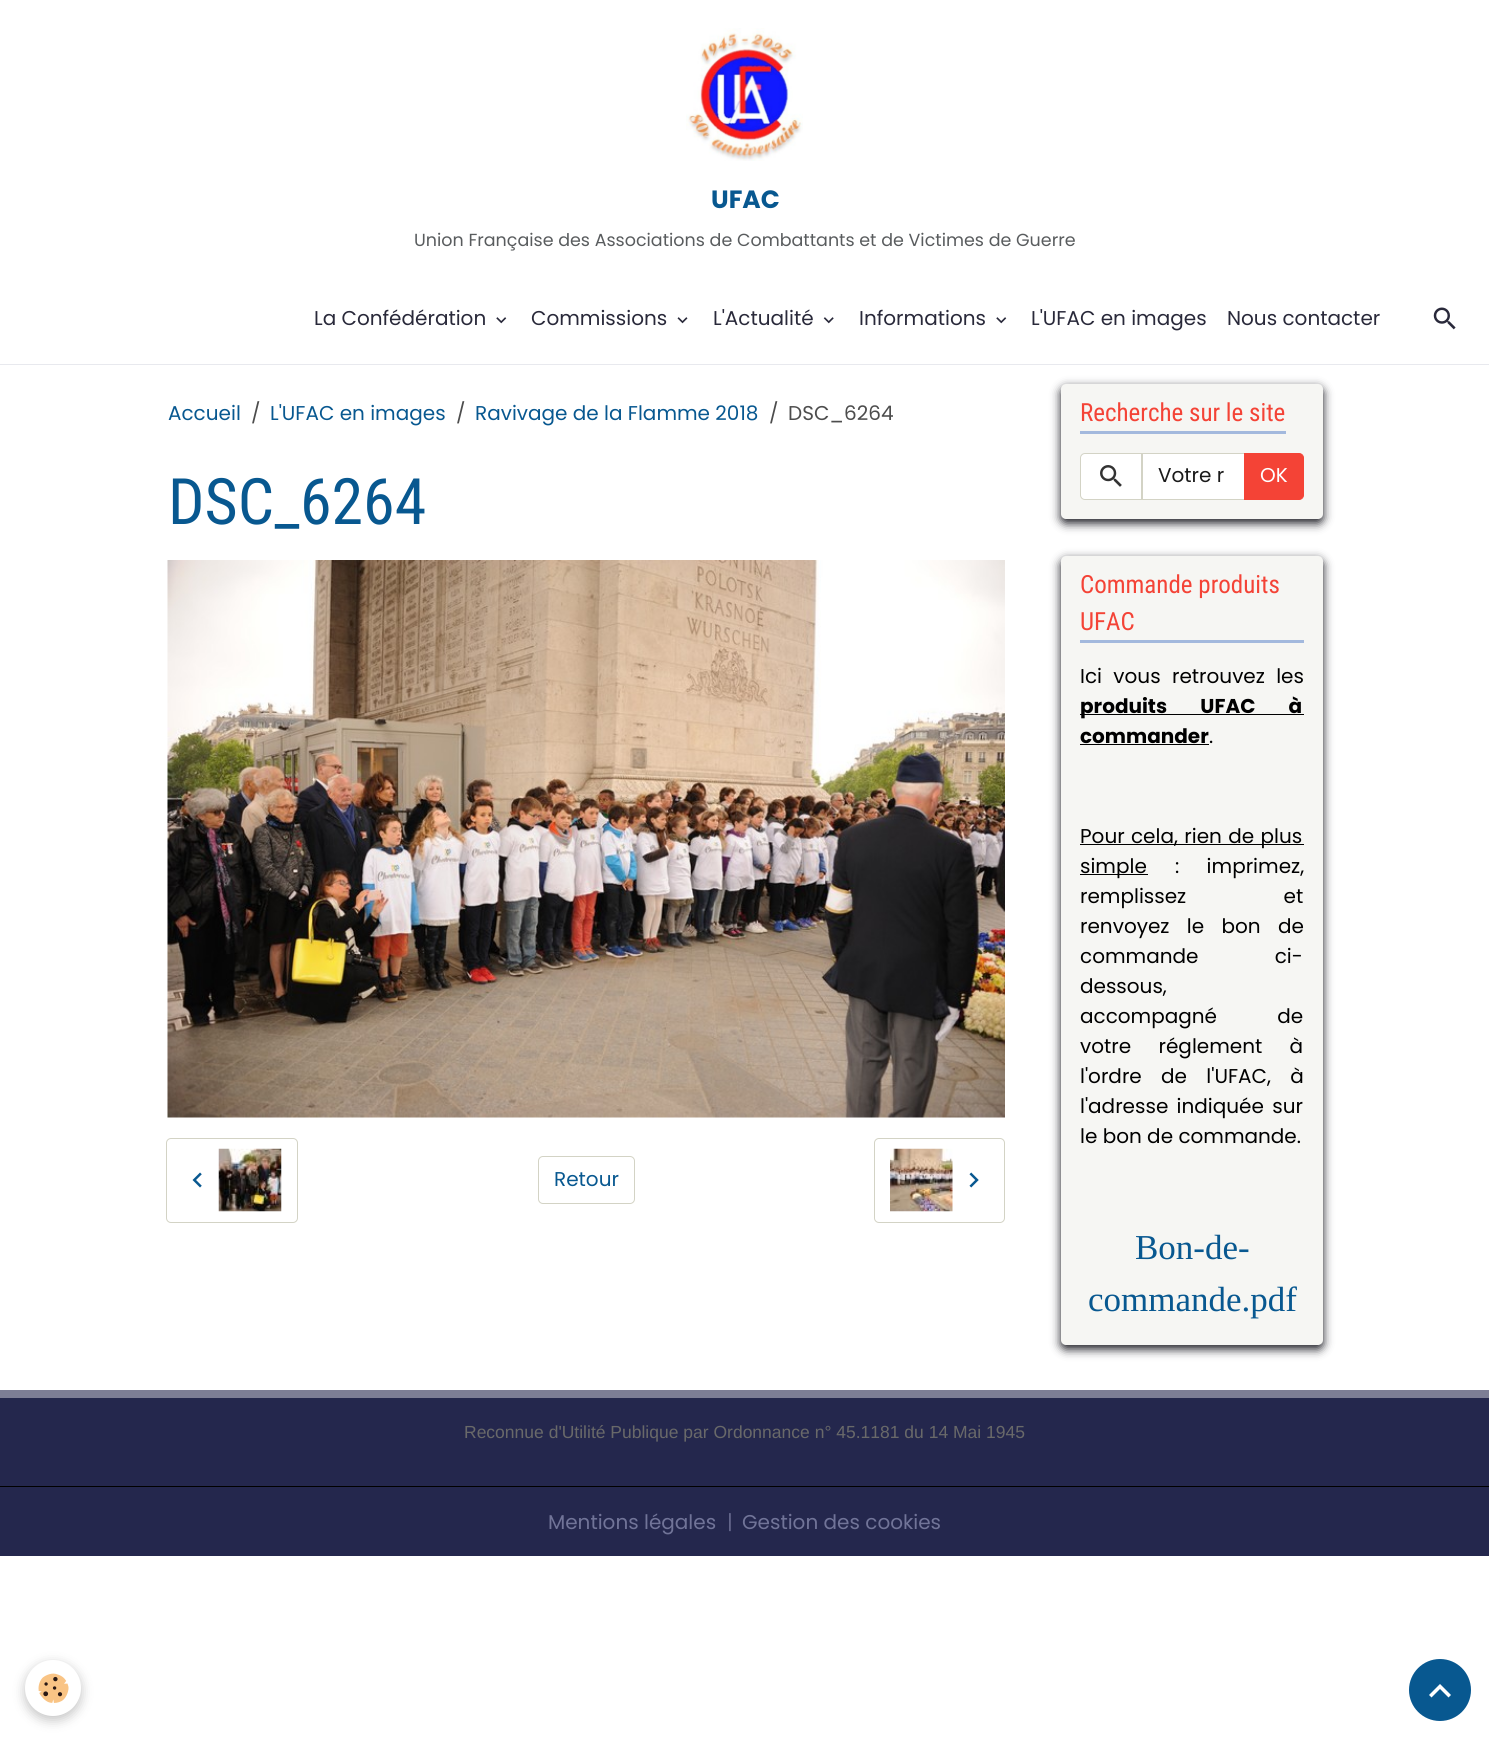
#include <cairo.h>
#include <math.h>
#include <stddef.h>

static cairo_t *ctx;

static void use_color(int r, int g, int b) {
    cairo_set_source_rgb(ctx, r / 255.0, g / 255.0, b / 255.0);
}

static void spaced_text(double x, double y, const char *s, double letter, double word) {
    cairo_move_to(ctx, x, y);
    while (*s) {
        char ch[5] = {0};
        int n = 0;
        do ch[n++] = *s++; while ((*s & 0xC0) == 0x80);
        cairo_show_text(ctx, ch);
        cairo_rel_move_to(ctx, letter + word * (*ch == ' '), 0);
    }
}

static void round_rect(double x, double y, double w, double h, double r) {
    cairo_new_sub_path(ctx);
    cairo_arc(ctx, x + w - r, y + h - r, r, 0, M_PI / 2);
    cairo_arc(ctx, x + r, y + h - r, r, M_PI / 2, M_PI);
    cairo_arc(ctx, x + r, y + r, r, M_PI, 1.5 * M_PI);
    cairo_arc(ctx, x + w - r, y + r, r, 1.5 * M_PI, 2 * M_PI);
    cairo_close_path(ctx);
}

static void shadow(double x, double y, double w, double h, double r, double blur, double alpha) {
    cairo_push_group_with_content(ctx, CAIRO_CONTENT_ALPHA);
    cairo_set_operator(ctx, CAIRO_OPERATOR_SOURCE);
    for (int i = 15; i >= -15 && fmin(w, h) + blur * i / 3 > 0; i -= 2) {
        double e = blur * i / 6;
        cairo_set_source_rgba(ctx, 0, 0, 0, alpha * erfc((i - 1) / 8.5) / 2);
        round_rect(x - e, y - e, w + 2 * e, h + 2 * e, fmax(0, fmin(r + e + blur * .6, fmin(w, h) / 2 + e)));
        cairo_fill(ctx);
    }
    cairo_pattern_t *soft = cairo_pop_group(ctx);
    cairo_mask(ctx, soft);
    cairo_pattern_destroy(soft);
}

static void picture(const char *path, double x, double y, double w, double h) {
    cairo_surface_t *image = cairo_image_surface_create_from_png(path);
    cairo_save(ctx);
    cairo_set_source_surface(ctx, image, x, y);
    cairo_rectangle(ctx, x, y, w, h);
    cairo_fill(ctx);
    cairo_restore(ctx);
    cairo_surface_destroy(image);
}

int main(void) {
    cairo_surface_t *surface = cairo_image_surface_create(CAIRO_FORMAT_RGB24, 1489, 1740);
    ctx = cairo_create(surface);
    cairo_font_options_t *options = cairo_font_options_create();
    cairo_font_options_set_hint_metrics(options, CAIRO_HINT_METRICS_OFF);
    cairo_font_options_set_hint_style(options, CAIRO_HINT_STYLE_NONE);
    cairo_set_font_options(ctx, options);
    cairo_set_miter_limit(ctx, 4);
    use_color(255, 255, 255);
    cairo_paint(ctx);
    picture("img1.png", 686, 28, 117, 133);
    cairo_select_font_face(ctx, "Poppins", CAIRO_FONT_SLANT_NORMAL, CAIRO_FONT_WEIGHT_BOLD);
    cairo_set_font_size(ctx, 25);
    use_color(8, 88, 144);
    cairo_move_to(ctx, 711, 208);
    cairo_show_text(ctx, "UFAC");
    cairo_select_font_face(ctx, "Poppins", CAIRO_FONT_SLANT_NORMAL, CAIRO_FONT_WEIGHT_NORMAL);
    cairo_set_font_size(ctx, 17.5);
    use_color(89, 92, 94);
    cairo_move_to(ctx, 414, 246);
    cairo_show_text(ctx, "Union Française des Associations de Combattants et de Victimes de Guerre");
    use_color(232, 233, 238);
    cairo_rectangle(ctx, 0, 364, 1489, 1);
    cairo_fill(ctx);
    cairo_set_font_size(ctx, 20);
    use_color(41, 41, 58);
    cairo_move_to(ctx, 314, 325);
    cairo_show_text(ctx, "La Confédération");
    picture("img2.png", 496, 317, 11, 7);
    cairo_move_to(ctx, 531, 325);
    cairo_show_text(ctx, "Commissions");
    picture("img3.png", 677, 317, 11, 7);
    cairo_move_to(ctx, 713, 325);
    cairo_show_text(ctx, "L'Actualité");
    picture("img4.png", 823, 317, 11, 7);
    cairo_move_to(ctx, 859, 325);
    cairo_show_text(ctx, "Informations");
    picture("img2.png", 996, 317, 11, 7);
    cairo_move_to(ctx, 1031, 325);
    cairo_show_text(ctx, "L'UFAC en images");
    cairo_move_to(ctx, 1227, 325);
    cairo_show_text(ctx, "Nous contacter");
    picture("img5.png", 1433, 307, 23, 23);
    use_color(8, 88, 144);
    cairo_move_to(ctx, 168, 420);
    cairo_show_text(ctx, "Accueil");
    use_color(77, 77, 77);
    cairo_move_to(ctx, 251, 420);
    cairo_show_text(ctx, "/");
    use_color(8, 88, 144);
    cairo_move_to(ctx, 270, 420);
    cairo_show_text(ctx, "L'UFAC en images");
    use_color(77, 77, 77);
    cairo_move_to(ctx, 456, 420);
    cairo_show_text(ctx, "/");
    use_color(8, 88, 144);
    cairo_move_to(ctx, 475, 420);
    cairo_show_text(ctx, "Ravivage de la Flamme 2018");
    use_color(77, 77, 77);
    cairo_move_to(ctx, 769, 420);
    cairo_show_text(ctx, "/");
    cairo_move_to(ctx, 788, 420);
    cairo_show_text(ctx, "DSC_6264");
    cairo_select_font_face(ctx, "Roboto Condensed", CAIRO_FONT_SLANT_NORMAL, CAIRO_FONT_WEIGHT_NORMAL);
    cairo_set_font_size(ctx, 64);
    use_color(8, 88, 144);
    cairo_move_to(ctx, 168, 524);
    cairo_show_text(ctx, "DSC_6264");
    picture("img6.png", 167, 560, 838, 558);
    round_rect(166.5, 1138.5, 131, 84, 4.5);
    use_color(211, 211, 197);
    cairo_set_line_width(ctx, 1);
    cairo_stroke(ctx);
    picture("img7.png", 192, 1172, 10, 16);
    picture("img8.png", 218, 1148, 64, 64);
    round_rect(538.5, 1156.5, 96, 47, 4.5);
    cairo_stroke(ctx);
    cairo_select_font_face(ctx, "Poppins", CAIRO_FONT_SLANT_NORMAL, CAIRO_FONT_WEIGHT_NORMAL);
    cairo_set_font_size(ctx, 20);
    use_color(8, 88, 144);
    cairo_move_to(ctx, 554, 1186);
    cairo_show_text(ctx, "Retour");
    round_rect(874.5, 1138.5, 130, 84, 4.5);
    use_color(211, 211, 197);
    cairo_stroke(ctx);
    picture("img9.png", 890, 1148, 63, 64);
    picture("img10.png", 969, 1172, 10, 16);
    use_color(20, 20, 28);
    shadow(1061, 388, 262, 135, 5, 5, 1);
    use_color(246, 246, 243);
    round_rect(1061, 384, 262, 135, 5);
    cairo_fill(ctx);
    use_color(163, 185, 221);
    cairo_rectangle(ctx, 1080, 431, 206, 3);
    cairo_fill(ctx);
    cairo_select_font_face(ctx, "Roboto Condensed", CAIRO_FONT_SLANT_NORMAL, CAIRO_FONT_WEIGHT_NORMAL);
    cairo_set_font_size(ctx, 25);
    use_color(244, 67, 54);
    cairo_move_to(ctx, 1080, 421);
    cairo_show_text(ctx, "Recherche sur le site");
    use_color(255, 255, 255);
    cairo_new_path(ctx);
    cairo_move_to(ctx, 1085, 453.5);
    cairo_line_to(ctx, 1142.5, 453.5);
    cairo_line_to(ctx, 1142.5, 499.5);
    cairo_line_to(ctx, 1085, 499.5);
    cairo_curve_to(ctx, 1082.5, 499.5, 1080.5, 497.5, 1080.5, 495);
    cairo_line_to(ctx, 1080.5, 458);
    cairo_curve_to(ctx, 1080.5, 455.5, 1082.5, 453.5, 1085, 453.5);
    cairo_close_path(ctx);
    cairo_fill_preserve(ctx);
    use_color(211, 211, 197);
    cairo_stroke(ctx);
    picture("img11.png", 1100, 465, 22, 22);
    use_color(255, 255, 255);
    cairo_rectangle(ctx, 1143, 454, 101, 45);
    cairo_fill(ctx);
    cairo_rectangle(ctx, 1141.5, 453.5, 103, 46);
    use_color(211, 211, 197);
    cairo_stroke(ctx);
    cairo_select_font_face(ctx, "Poppins", CAIRO_FONT_SLANT_NORMAL, CAIRO_FONT_WEIGHT_NORMAL);
    cairo_set_font_size(ctx, 20);
    use_color(26, 26, 26);
    cairo_move_to(ctx, 1158, 482);
    cairo_show_text(ctx, "Votre r");
    use_color(244, 67, 54);
    cairo_new_path(ctx);
    cairo_move_to(ctx, 1244.5, 453.5);
    cairo_line_to(ctx, 1299, 453.5);
    cairo_curve_to(ctx, 1301.5, 453.5, 1303.5, 455.5, 1303.5, 458);
    cairo_line_to(ctx, 1303.5, 495);
    cairo_curve_to(ctx, 1303.5, 497.5, 1301.5, 499.5, 1299, 499.5);
    cairo_line_to(ctx, 1244.5, 499.5);
    cairo_close_path(ctx);
    cairo_fill_preserve(ctx);
    cairo_stroke(ctx);
    use_color(255, 255, 255);
    cairo_move_to(ctx, 1260, 482);
    cairo_show_text(ctx, "OK");
    use_color(20, 20, 28);
    shadow(1061, 560, 262, 789, 5, 5, 1);
    use_color(246, 246, 243);
    round_rect(1061, 556, 262, 789, 5);
    cairo_fill(ctx);
    use_color(163, 185, 221);
    cairo_rectangle(ctx, 1080, 640, 224, 3);
    cairo_fill(ctx);
    cairo_select_font_face(ctx, "Roboto Condensed", CAIRO_FONT_SLANT_NORMAL, CAIRO_FONT_WEIGHT_NORMAL);
    cairo_set_font_size(ctx, 25);
    use_color(244, 67, 54);
    cairo_move_to(ctx, 1080, 593);
    cairo_show_text(ctx, "Commande produits");
    cairo_move_to(ctx, 1080, 630);
    cairo_show_text(ctx, "UFAC");
    cairo_select_font_face(ctx, "Poppins", CAIRO_FONT_SLANT_NORMAL, CAIRO_FONT_WEIGHT_NORMAL);
    cairo_set_font_size(ctx, 20);
    use_color(0, 0, 0);
    spaced_text(1080, 683, "Ici vous retrouvez les", 0, 6);
    cairo_rectangle(ctx, 1080, 714, 224, 1);
    cairo_fill(ctx);
    cairo_select_font_face(ctx, "Poppins", CAIRO_FONT_SLANT_NORMAL, CAIRO_FONT_WEIGHT_BOLD);
    spaced_text(1080, 713, "produits UFAC à", 0, 29);
    cairo_move_to(ctx, 1080, 743);
    cairo_show_text(ctx, "commander");
    cairo_rectangle(ctx, 1080, 744, 129, 1);
    cairo_fill(ctx);
    cairo_select_font_face(ctx, "Poppins", CAIRO_FONT_SLANT_NORMAL, CAIRO_FONT_WEIGHT_NORMAL);
    cairo_move_to(ctx, 1209, 743);
    cairo_show_text(ctx, ".");
    cairo_rectangle(ctx, 1080, 844, 224, 1);
    cairo_fill(ctx);
    spaced_text(1080, 843, "Pour cela, rien de plus", 0, 1);
    cairo_rectangle(ctx, 1080, 874, 68, 1);
    cairo_fill(ctx);
    cairo_move_to(ctx, 1080, 873);
    cairo_show_text(ctx, "simple");
    spaced_text(1175, 873, ": imprimez,", 0, 22);
    spaced_text(1080, 903, "remplissez et", 0, 92);
    spaced_text(1080, 933, "renvoyez le bon de", 0, 12);
    spaced_text(1080, 963, "commande ci-", 0, 71);
    cairo_move_to(ctx, 1080, 993);
    cairo_show_text(ctx, "dessous,");
    spaced_text(1080, 1023, "accompagné de", 0, 55);
    spaced_text(1080, 1053, "votre réglement à", 0, 22);
    spaced_text(1080, 1083, "l'ordre de l'UFAC, à", 0, 14);
    spaced_text(1080, 1113, "l'adresse indiquée sur", 0, 3);
    cairo_move_to(ctx, 1080, 1143);
    cairo_show_text(ctx, "le bon de commande.");
    cairo_select_font_face(ctx, "Liberation Serif", CAIRO_FONT_SLANT_NORMAL, CAIRO_FONT_WEIGHT_NORMAL);
    cairo_set_font_size(ctx, 35);
    use_color(8, 88, 144);
    cairo_move_to(ctx, 1135, 1259);
    cairo_show_text(ctx, "Bon-de-");
    cairo_move_to(ctx, 1088, 1311);
    cairo_show_text(ctx, "commande.pdf");
    use_color(36, 39, 77);
    cairo_rectangle(ctx, 0, 1398, 1489, 158);
    cairo_fill(ctx);
    use_color(125, 126, 149);
    cairo_rectangle(ctx, 0, 1390, 1489, 8);
    cairo_fill(ctx);
    cairo_select_font_face(ctx, "Liberation Sans", CAIRO_FONT_SLANT_NORMAL, CAIRO_FONT_WEIGHT_NORMAL);
    cairo_set_font_size(ctx, 17.5);
    use_color(105, 105, 105);
    cairo_move_to(ctx, 464, 1438);
    cairo_show_text(ctx, "Reconnue d'Utilité Publique par Ordonnance n° 45.1181 du 14 Mai 1945");
    use_color(0, 0, 0);
    cairo_rectangle(ctx, 0, 1486, 1489, 1);
    cairo_fill(ctx);
    cairo_select_font_face(ctx, "Poppins", CAIRO_FONT_SLANT_NORMAL, CAIRO_FONT_WEIGHT_NORMAL);
    cairo_set_font_size(ctx, 20);
    use_color(113, 116, 152);
    cairo_move_to(ctx, 548, 1529);
    cairo_show_text(ctx, "Mentions légales");
    use_color(98, 101, 137);
    cairo_move_to(ctx, 727, 1529);
    cairo_show_text(ctx, "|");
    use_color(113, 116, 152);
    cairo_move_to(ctx, 742, 1529);
    cairo_show_text(ctx, "Gestion des cookies");
    use_color(0, 0, 0);
    shadow(25, 1664, 56, 56, 28, 6, 0.24);
    use_color(255, 255, 255);
    cairo_arc(ctx, 53, 1688, 28, 0, 2 * M_PI);
    cairo_fill(ctx);
    picture("img12.png", 38, 1673, 31, 30);
    use_color(8, 88, 144);
    cairo_arc(ctx, 1440, 1690, 31, 0, 2 * M_PI);
    cairo_fill(ctx);
    use_color(255, 255, 255);
    cairo_new_path(ctx);
    cairo_move_to(ctx, 1440, 1684);
    cairo_line_to(ctx, 1451, 1695);
    cairo_line_to(ctx, 1448.5, 1697.5);
    cairo_line_to(ctx, 1440, 1689);
    cairo_line_to(ctx, 1431.5, 1697.5);
    cairo_line_to(ctx, 1429, 1695);
    cairo_close_path(ctx);
    cairo_fill(ctx);
    cairo_surface_write_to_png(surface, "result.png");
    cairo_font_options_destroy(options);
    cairo_destroy(ctx);
    cairo_surface_destroy(surface);
    return 0;
}
